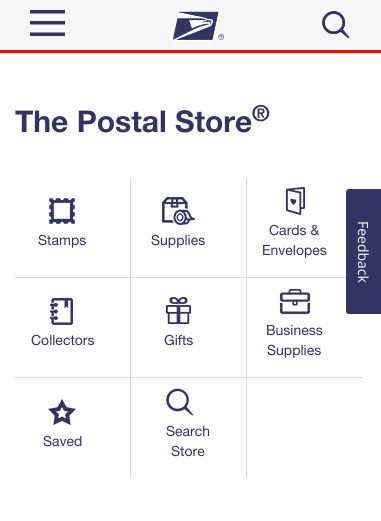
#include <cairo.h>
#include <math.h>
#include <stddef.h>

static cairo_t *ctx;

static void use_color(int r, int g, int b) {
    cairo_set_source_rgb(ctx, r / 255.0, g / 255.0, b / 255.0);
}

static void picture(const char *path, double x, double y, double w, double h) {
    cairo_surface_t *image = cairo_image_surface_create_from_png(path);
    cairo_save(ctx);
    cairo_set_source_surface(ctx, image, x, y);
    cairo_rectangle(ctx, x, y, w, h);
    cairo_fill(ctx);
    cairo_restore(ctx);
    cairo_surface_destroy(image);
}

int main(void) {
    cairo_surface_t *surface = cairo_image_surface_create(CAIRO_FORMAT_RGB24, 381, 521);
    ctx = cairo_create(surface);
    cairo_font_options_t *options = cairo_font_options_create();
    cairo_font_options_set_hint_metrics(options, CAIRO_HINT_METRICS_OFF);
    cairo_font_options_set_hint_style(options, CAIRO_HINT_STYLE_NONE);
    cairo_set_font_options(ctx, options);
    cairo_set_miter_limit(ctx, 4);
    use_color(255, 255, 255);
    cairo_paint(ctx);
    use_color(247, 247, 247);
    cairo_rectangle(ctx, 0, 0, 381, 50);
    cairo_fill(ctx);
    use_color(255, 0, 0);
    cairo_rectangle(ctx, 0, 50, 381, 3);
    cairo_fill(ctx);
    use_color(52, 52, 102);
    cairo_set_fill_rule(ctx, CAIRO_FILL_RULE_EVEN_ODD);
    cairo_new_path(ctx);
    cairo_move_to(ctx, 30, 36);
    cairo_line_to(ctx, 30, 32.5);
    cairo_line_to(ctx, 65, 32.5);
    cairo_line_to(ctx, 65, 36);
    cairo_close_path(ctx);
    cairo_move_to(ctx, 30, 21);
    cairo_line_to(ctx, 65, 21);
    cairo_line_to(ctx, 65, 24.5);
    cairo_line_to(ctx, 30, 24.5);
    cairo_close_path(ctx);
    cairo_move_to(ctx, 30, 10);
    cairo_line_to(ctx, 65, 10);
    cairo_line_to(ctx, 65, 13.5);
    cairo_line_to(ctx, 30, 13.5);
    cairo_close_path(ctx);
    cairo_fill(ctx);
    picture("img1.png", 172, 11, 52, 30);
    picture("img2.png", 322, 11, 28, 28);
    cairo_select_font_face(ctx, "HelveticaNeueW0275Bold", CAIRO_FONT_SLANT_NORMAL, CAIRO_FONT_WEIGHT_BOLD);
    cairo_set_font_size(ctx, 30);
    use_color(51, 51, 102);
    cairo_move_to(ctx, 15, 132);
    cairo_show_text(ctx, "The Postal Store");
    cairo_set_font_size(ctx, 22);
    cairo_move_to(ctx, 252, 121);
    cairo_show_text(ctx, "®");
    use_color(216, 216, 216);
    cairo_rectangle(ctx, 130, 178, 1, 300);
    cairo_fill(ctx);
    cairo_rectangle(ctx, 15, 277, 116, 1);
    cairo_fill(ctx);
    picture("img3.png", 49, 198, 26, 26);
    cairo_select_font_face(ctx, "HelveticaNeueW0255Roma", CAIRO_FONT_SLANT_NORMAL, CAIRO_FONT_WEIGHT_NORMAL);
    cairo_set_font_size(ctx, 14);
    use_color(51, 51, 102);
    cairo_move_to(ctx, 38, 245);
    cairo_show_text(ctx, "Stamps");
    use_color(216, 216, 216);
    cairo_rectangle(ctx, 246, 178, 1, 300);
    cairo_fill(ctx);
    cairo_rectangle(ctx, 131, 277, 215, 1);
    cairo_fill(ctx);
    picture("img4.png", 161, 197, 34, 28);
    use_color(51, 51, 102);
    cairo_move_to(ctx, 151, 245);
    cairo_show_text(ctx, "Supplies");
    picture("img5.png", 285, 187, 21, 28);
    cairo_move_to(ctx, 269, 235);
    cairo_show_text(ctx, "Cards &");
    cairo_move_to(ctx, 262, 255);
    cairo_show_text(ctx, "Envelopes");
    use_color(216, 216, 216);
    cairo_rectangle(ctx, 15, 377, 347, 1);
    cairo_fill(ctx);
    picture("img6.png", 49, 297, 25, 28);
    use_color(51, 51, 102);
    cairo_move_to(ctx, 31, 345);
    cairo_show_text(ctx, "Collectors");
    picture("img7.png", 165, 297, 27, 28);
    cairo_move_to(ctx, 164, 345);
    cairo_show_text(ctx, "Gifts");
    picture("img8.png", 279, 288, 32, 27);
    cairo_move_to(ctx, 266, 335);
    cairo_show_text(ctx, "Business");
    cairo_move_to(ctx, 267, 355);
    cairo_show_text(ctx, "Supplies");
    picture("img9.png", 48, 399, 28, 26);
    cairo_move_to(ctx, 43, 446);
    cairo_show_text(ctx, "Saved");
    picture("img10.png", 166, 388, 27, 28);
    cairo_move_to(ctx, 166, 436);
    cairo_show_text(ctx, "Search");
    cairo_move_to(ctx, 171, 456);
    cairo_show_text(ctx, "Store");
    cairo_set_fill_rule(ctx, CAIRO_FILL_RULE_WINDING);
    cairo_new_path(ctx);
    cairo_move_to(ctx, 381, 189);
    cairo_line_to(ctx, 381, 314);
    cairo_line_to(ctx, 349, 314);
    cairo_curve_to(ctx, 347, 314, 346, 313, 346, 311);
    cairo_line_to(ctx, 346, 192);
    cairo_curve_to(ctx, 346, 191, 347, 189, 349, 189);
    cairo_close_path(ctx);
    cairo_fill(ctx);
    cairo_select_font_face(ctx, "Open Sans", CAIRO_FONT_SLANT_NORMAL, CAIRO_FONT_WEIGHT_NORMAL);
    use_color(255, 255, 255);
    cairo_save(ctx);
    cairo_translate(ctx, 358, 221);
    cairo_rotate(ctx, 90 * M_PI / 180);
    cairo_move_to(ctx, 0, 0);
    cairo_show_text(ctx, "Feedback");
    cairo_restore(ctx);
    cairo_surface_write_to_png(surface, "result.png");
    cairo_font_options_destroy(options);
    cairo_destroy(ctx);
    cairo_surface_destroy(surface);
    return 0;
}
